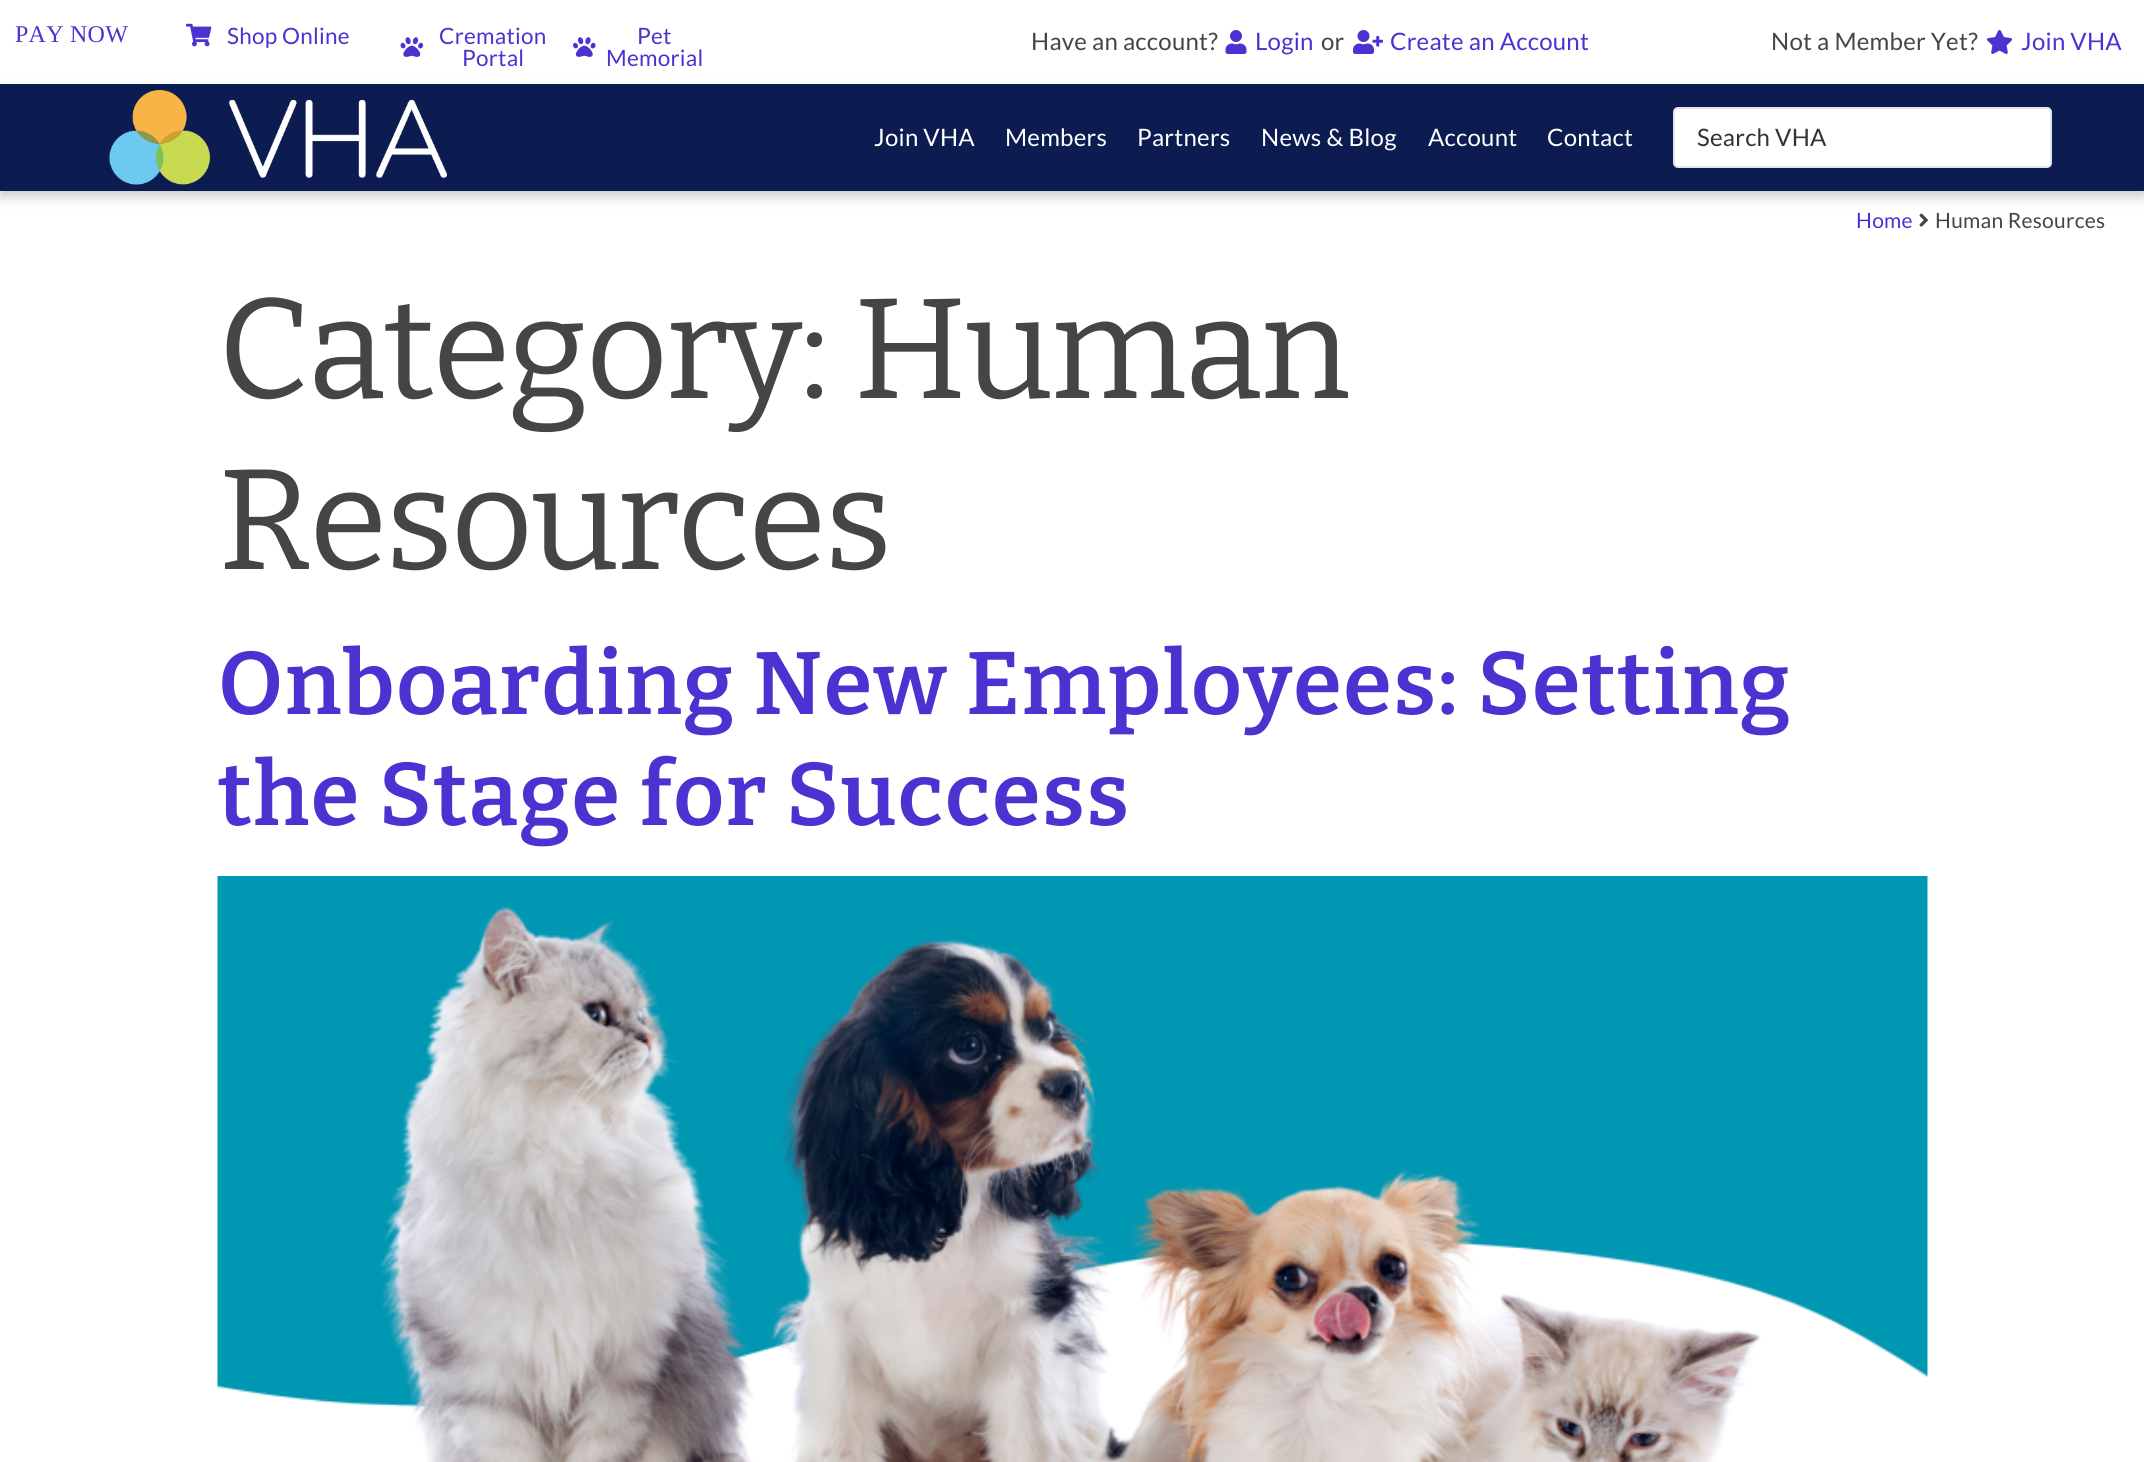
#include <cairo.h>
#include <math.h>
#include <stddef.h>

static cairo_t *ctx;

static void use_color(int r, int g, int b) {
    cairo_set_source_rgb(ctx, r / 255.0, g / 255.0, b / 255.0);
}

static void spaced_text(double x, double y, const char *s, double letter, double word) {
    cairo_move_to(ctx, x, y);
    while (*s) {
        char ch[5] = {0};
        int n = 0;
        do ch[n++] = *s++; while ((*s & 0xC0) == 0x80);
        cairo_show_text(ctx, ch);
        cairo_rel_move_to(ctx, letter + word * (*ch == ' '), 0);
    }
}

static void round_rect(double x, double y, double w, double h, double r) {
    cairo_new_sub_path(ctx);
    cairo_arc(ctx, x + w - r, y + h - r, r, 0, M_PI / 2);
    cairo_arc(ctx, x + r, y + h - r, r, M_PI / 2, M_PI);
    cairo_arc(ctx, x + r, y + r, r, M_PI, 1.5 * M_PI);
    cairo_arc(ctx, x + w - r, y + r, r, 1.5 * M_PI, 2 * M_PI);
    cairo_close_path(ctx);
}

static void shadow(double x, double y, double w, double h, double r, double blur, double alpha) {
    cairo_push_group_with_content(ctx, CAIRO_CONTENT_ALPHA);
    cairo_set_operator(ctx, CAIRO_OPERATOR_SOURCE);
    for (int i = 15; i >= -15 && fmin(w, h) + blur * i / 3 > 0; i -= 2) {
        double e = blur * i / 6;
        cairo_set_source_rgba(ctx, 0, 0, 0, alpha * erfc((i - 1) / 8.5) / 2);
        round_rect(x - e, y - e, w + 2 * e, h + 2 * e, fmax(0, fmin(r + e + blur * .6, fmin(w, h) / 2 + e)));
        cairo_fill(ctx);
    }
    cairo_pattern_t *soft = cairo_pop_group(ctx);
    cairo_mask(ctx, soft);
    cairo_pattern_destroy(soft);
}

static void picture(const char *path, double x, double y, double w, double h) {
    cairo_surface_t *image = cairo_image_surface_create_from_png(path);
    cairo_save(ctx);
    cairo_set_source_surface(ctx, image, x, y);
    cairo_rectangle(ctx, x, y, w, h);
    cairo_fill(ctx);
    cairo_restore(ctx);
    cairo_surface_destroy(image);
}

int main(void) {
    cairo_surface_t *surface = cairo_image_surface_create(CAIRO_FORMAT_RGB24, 2144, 1462);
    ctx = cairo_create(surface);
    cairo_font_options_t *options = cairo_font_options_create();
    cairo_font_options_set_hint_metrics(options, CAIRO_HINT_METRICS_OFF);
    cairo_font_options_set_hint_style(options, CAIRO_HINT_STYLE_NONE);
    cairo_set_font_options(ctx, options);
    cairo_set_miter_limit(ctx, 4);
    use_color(255, 255, 255);
    cairo_paint(ctx);
    cairo_select_font_face(ctx, "Liberation Serif", CAIRO_FONT_SLANT_NORMAL, CAIRO_FONT_WEIGHT_NORMAL);
    cairo_set_font_size(ctx, 24);
    use_color(76, 50, 209);
    spaced_text(15, 42, "PAY NOW", 0.25, 0);
    picture("img1.png", 186, 23, 26, 24);
    cairo_select_font_face(ctx, "Lato", CAIRO_FONT_SLANT_NORMAL, CAIRO_FONT_WEIGHT_NORMAL);
    cairo_set_font_size(ctx, 22.5);
    spaced_text(227, 44, "Shop Online", 0.25, 0);
    picture("img2.png", 400, 37, 24, 20);
    spaced_text(439, 44, "Cremation", 0.25, 0);
    spaced_text(462, 66, "Portal", 0.25, 0);
    picture("img3.png", 573, 37, 23, 20);
    spaced_text(637, 44, "Pet", 0.25, 0);
    spaced_text(606, 66, "Memorial", 0.25, 0);
    cairo_set_font_size(ctx, 24);
    use_color(69, 69, 69);
    spaced_text(1031, 50, "Have an account?", 0.25, 0);
    picture("img4.png", 1225, 30, 22, 24);
    use_color(76, 50, 209);
    spaced_text(1255, 50, "Login", 0.25, 0);
    use_color(69, 69, 69);
    spaced_text(1321, 50, "or", 0.25, 0);
    picture("img5.png", 1353, 30, 30, 24);
    use_color(76, 50, 209);
    spaced_text(1390, 50, "Create an Account", 0.25, 0);
    use_color(69, 69, 69);
    spaced_text(1771, 50, "Not a Member Yet?", 0.25, 0);
    picture("img6.png", 1987, 30, 25, 24);
    use_color(76, 50, 209);
    spaced_text(2021, 50, "Join VHA", 0.25, 0);
    use_color(0, 0, 0);
    shadow(0, 90, 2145, 107, 0, 6, 0.2);
    use_color(12, 28, 80);
    cairo_rectangle(ctx, 0, 84, 2144, 107);
    cairo_fill(ctx);
    picture("img7.png", 109, 90, 338, 95);
    use_color(255, 255, 255);
    spaced_text(874, 146, "Join VHA", 0.25, 0);
    spaced_text(1005, 146, "Members", 0.25, 0);
    spaced_text(1137, 146, "Partners", 0.25, 0);
    spaced_text(1261, 146, "News & Blog", 0.25, 0);
    spaced_text(1428, 146, "Account", 0.25, 0);
    spaced_text(1547, 146, "Contact", 0.25, 0);
    round_rect(1674, 108, 377, 59, 4);
    cairo_fill_preserve(ctx);
    use_color(225, 229, 235);
    cairo_stroke(ctx);
    use_color(51, 51, 51);
    spaced_text(1697, 146, "Search VHA", 0.25, 0);
    cairo_set_font_size(ctx, 21);
    use_color(76, 50, 209);
    spaced_text(1856, 228, "Home", 0.25, 0);
    picture("img8.png", 1919, 213, 9, 14);
    use_color(69, 69, 69);
    spaced_text(1935, 228, "Human Resources", 0.25, 0);
    cairo_select_font_face(ctx, "Bitter", CAIRO_FONT_SLANT_NORMAL, CAIRO_FONT_WEIGHT_NORMAL);
    cairo_set_font_size(ctx, 142.5);
    spaced_text(218, 398, "Category: Human", -2.25, 0);
    spaced_text(218, 569, "Resources", -2.25, 0);
    cairo_select_font_face(ctx, "Bitter SemiBold", CAIRO_FONT_SLANT_NORMAL, CAIRO_FONT_WEIGHT_NORMAL);
    cairo_set_font_size(ctx, 88.5);
    use_color(76, 50, 209);
    spaced_text(218, 714, "Onboarding New Employees: Setting", 1.5, 0);
    spaced_text(218, 825, "the Stage for Success", 1.5, 0);
    picture("img9.png", 217, 876, 1711, 586);
    cairo_surface_write_to_png(surface, "result.png");
    cairo_font_options_destroy(options);
    cairo_destroy(ctx);
    cairo_surface_destroy(surface);
    return 0;
}
